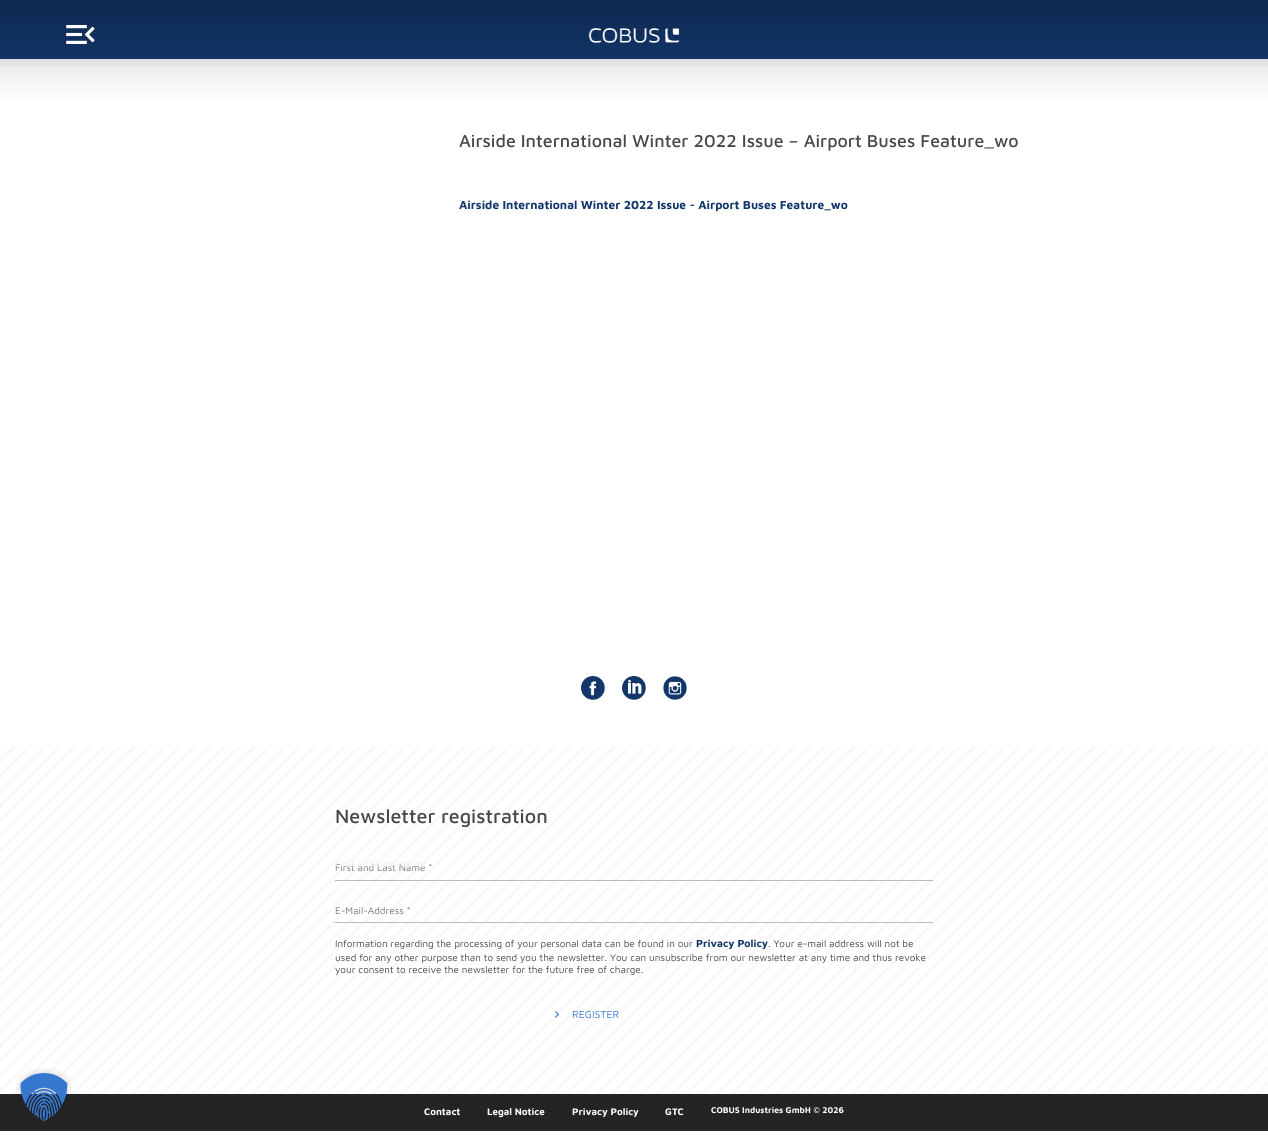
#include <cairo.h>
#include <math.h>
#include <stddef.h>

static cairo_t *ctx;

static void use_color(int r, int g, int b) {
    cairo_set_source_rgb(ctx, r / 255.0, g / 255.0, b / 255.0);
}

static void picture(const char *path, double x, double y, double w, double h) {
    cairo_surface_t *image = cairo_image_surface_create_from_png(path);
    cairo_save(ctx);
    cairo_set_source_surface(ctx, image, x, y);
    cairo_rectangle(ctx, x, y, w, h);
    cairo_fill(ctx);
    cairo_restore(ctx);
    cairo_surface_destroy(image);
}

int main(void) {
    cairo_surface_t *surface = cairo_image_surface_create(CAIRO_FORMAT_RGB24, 1268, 1141);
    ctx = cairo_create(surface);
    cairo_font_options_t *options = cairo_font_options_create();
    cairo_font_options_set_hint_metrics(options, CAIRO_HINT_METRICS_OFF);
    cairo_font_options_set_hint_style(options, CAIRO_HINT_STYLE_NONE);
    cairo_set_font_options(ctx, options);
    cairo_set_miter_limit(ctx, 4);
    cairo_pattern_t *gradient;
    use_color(255, 255, 255);
    cairo_paint(ctx);
    picture("img8.png", 0, 746, 1268, 348);
    use_color(36, 36, 36);
    cairo_rectangle(ctx, 0, 1094, 1268, 37);
    cairo_fill(ctx);
    picture("img1.png", 16, 1068, 56, 53);
    use_color(19, 54, 107);
    cairo_rectangle(ctx, 0, 0, 1268, 59);
    cairo_fill(ctx);
    picture("img4.png", 0, 59, 1268, 40);
    gradient = cairo_pattern_create_linear(634, 0, 634, 74);
    cairo_pattern_add_color_stop_rgba(gradient, 0, 0, 0, 0, 0.25);
    cairo_pattern_add_color_stop_rgba(gradient, 0.99, 0, 0, 0, 0);
    cairo_pattern_add_color_stop_rgba(gradient, 1, 0.898, 0.898, 0.898, 0);
    cairo_set_source(ctx, gradient);
    cairo_pattern_destroy(gradient);
    cairo_rectangle(ctx, 0, 0, 1268, 67);
    cairo_fill(ctx);
    picture("img2.png", 66, 25, 29, 19);
    picture("img3.png", 588, 28, 92, 15);
    cairo_select_font_face(ctx, "Maven Pro Medium", CAIRO_FONT_SLANT_NORMAL, CAIRO_FONT_WEIGHT_NORMAL);
    cairo_set_font_size(ctx, 17.8);
    use_color(71, 71, 71);
    cairo_move_to(ctx, 459, 147);
    cairo_show_text(ctx, "Airside International Winter 2022 Issue – Airport Buses Feature_wo");
    cairo_select_font_face(ctx, "Maven Pro", CAIRO_FONT_SLANT_NORMAL, CAIRO_FONT_WEIGHT_BOLD);
    cairo_set_font_size(ctx, 12);
    use_color(19, 54, 107);
    cairo_move_to(ctx, 459, 209);
    cairo_show_text(ctx, "Airside International Winter 2022 Issue - Airport Buses Feature_wo");
    picture("img5.png", 581, 676, 24, 24);
    picture("img6.png", 622, 676, 24, 24);
    picture("img7.png", 663, 676, 24, 24);
    cairo_select_font_face(ctx, "Maven Pro Medium", CAIRO_FONT_SLANT_NORMAL, CAIRO_FONT_WEIGHT_NORMAL);
    cairo_set_font_size(ctx, 19.75);
    use_color(71, 71, 71);
    cairo_move_to(ctx, 335, 823);
    cairo_show_text(ctx, "Newsletter registration");
    cairo_select_font_face(ctx, "Maven Pro", CAIRO_FONT_SLANT_NORMAL, CAIRO_FONT_WEIGHT_NORMAL);
    cairo_set_font_size(ctx, 9.9);
    use_color(117, 117, 117);
    cairo_move_to(ctx, 335, 871);
    cairo_show_text(ctx, "First and Last Name *");
    use_color(236, 236, 236);
    cairo_move_to(ctx, 335, 867);
    cairo_show_text(ctx, "First and Last Name");
    use_color(185, 187, 187);
    cairo_rectangle(ctx, 335, 880, 598, 1);
    cairo_fill(ctx);
    cairo_rectangle(ctx, 335, 922, 598, 1);
    cairo_fill(ctx);
    use_color(117, 117, 117);
    cairo_move_to(ctx, 335, 914);
    cairo_show_text(ctx, "E-Mail-Address *");
    use_color(71, 71, 71);
    cairo_move_to(ctx, 335, 947);
    cairo_show_text(ctx, "Information regarding the processing of your personal data can be found in our");
    cairo_select_font_face(ctx, "Maven Pro", CAIRO_FONT_SLANT_NORMAL, CAIRO_FONT_WEIGHT_BOLD);
    cairo_set_font_size(ctx, 10.5);
    use_color(19, 54, 107);
    cairo_move_to(ctx, 696, 947);
    cairo_show_text(ctx, "Privacy Policy");
    cairo_select_font_face(ctx, "Maven Pro", CAIRO_FONT_SLANT_NORMAL, CAIRO_FONT_WEIGHT_NORMAL);
    cairo_set_font_size(ctx, 9.9);
    use_color(71, 71, 71);
    cairo_move_to(ctx, 768, 947);
    cairo_show_text(ctx, ". Your e-mail address will not be");
    cairo_move_to(ctx, 335, 961);
    cairo_show_text(ctx, "used for any other purpose than to send you the newsletter. You can unsubscribe from our newsletter at any time and thus revoke");
    cairo_move_to(ctx, 335, 973);
    cairo_show_text(ctx, "your consent to receive the newsletter for the future free of charge.");
    picture("img9.png", 555, 1011, 4, 7);
    cairo_set_font_size(ctx, 10.5);
    use_color(54, 120, 207);
    cairo_move_to(ctx, 572, 1018);
    cairo_show_text(ctx, "REGISTER");
    cairo_select_font_face(ctx, "Maven Pro", CAIRO_FONT_SLANT_NORMAL, CAIRO_FONT_WEIGHT_BOLD);
    cairo_set_font_size(ctx, 9.75);
    use_color(255, 255, 255);
    cairo_move_to(ctx, 424, 1115);
    cairo_show_text(ctx, "Contact");
    cairo_move_to(ctx, 487, 1115);
    cairo_show_text(ctx, "Legal Notice");
    cairo_move_to(ctx, 572, 1115);
    cairo_show_text(ctx, "Privacy Policy");
    cairo_move_to(ctx, 665, 1115);
    cairo_show_text(ctx, "GTC");
    cairo_set_font_size(ctx, 8.6);
    cairo_move_to(ctx, 711, 1113);
    cairo_show_text(ctx, "COBUS Industries GmbH © 2026");
    cairo_surface_write_to_png(surface, "result.png");
    cairo_font_options_destroy(options);
    cairo_destroy(ctx);
    cairo_surface_destroy(surface);
    return 0;
}
